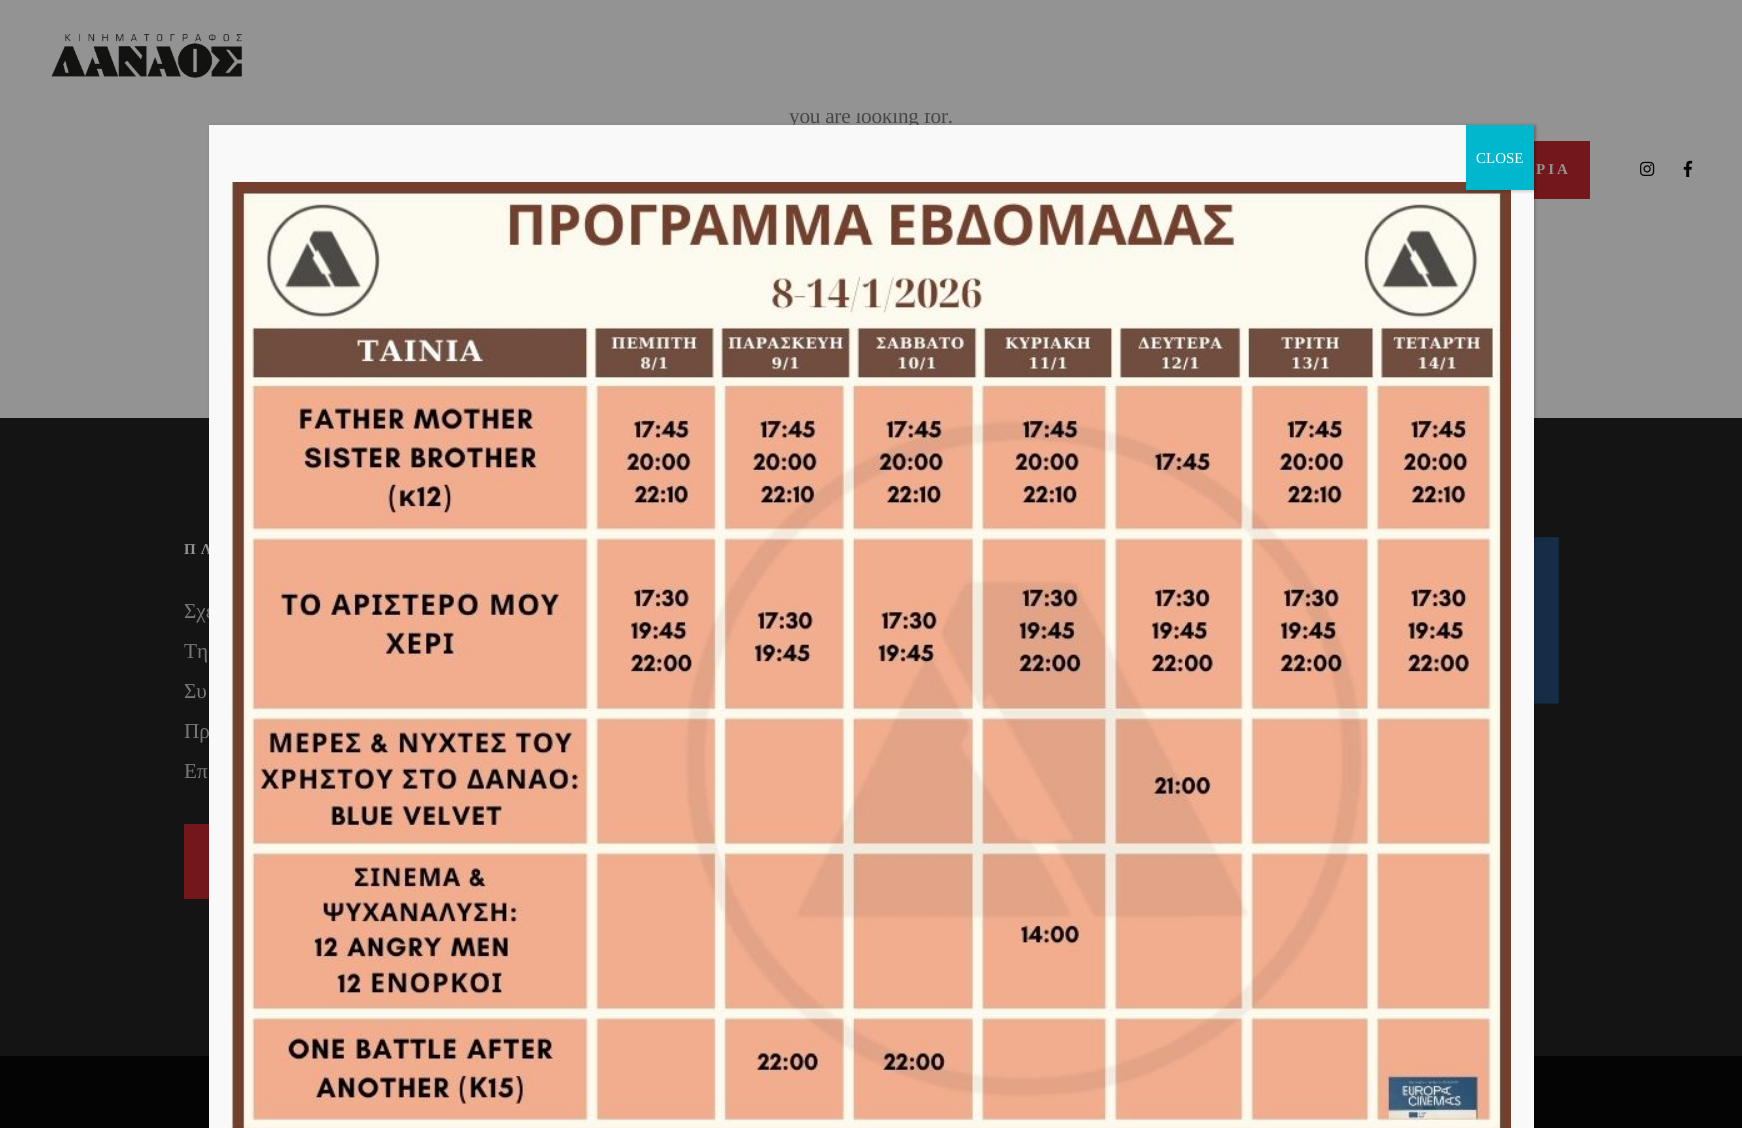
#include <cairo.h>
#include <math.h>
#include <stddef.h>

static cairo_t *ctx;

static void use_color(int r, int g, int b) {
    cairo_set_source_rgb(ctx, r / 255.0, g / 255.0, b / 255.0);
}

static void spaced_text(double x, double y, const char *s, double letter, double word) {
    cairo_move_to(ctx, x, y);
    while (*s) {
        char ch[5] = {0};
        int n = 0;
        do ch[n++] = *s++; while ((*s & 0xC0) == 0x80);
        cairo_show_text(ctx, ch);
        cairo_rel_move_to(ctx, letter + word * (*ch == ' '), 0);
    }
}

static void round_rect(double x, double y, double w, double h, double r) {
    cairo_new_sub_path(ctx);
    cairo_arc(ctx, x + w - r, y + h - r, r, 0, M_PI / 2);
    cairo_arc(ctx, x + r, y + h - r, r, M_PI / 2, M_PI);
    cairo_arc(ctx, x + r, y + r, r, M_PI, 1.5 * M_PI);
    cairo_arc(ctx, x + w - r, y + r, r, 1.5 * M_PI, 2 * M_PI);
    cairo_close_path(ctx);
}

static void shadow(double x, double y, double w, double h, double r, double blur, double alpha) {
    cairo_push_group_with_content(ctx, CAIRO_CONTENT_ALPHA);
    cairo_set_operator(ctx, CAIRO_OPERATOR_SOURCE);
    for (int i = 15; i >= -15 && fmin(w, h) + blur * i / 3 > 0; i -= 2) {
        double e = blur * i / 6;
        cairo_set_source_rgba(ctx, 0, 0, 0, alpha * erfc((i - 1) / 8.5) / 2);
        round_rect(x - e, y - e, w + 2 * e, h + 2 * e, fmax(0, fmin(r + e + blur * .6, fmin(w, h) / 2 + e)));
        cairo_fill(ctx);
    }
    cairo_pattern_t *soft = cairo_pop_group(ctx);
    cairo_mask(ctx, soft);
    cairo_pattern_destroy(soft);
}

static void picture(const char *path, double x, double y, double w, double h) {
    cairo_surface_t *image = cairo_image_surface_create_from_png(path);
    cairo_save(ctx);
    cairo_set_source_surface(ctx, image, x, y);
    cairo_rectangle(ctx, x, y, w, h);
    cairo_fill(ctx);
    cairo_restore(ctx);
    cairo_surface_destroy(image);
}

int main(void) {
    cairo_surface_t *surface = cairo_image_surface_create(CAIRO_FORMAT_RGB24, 1742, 1128);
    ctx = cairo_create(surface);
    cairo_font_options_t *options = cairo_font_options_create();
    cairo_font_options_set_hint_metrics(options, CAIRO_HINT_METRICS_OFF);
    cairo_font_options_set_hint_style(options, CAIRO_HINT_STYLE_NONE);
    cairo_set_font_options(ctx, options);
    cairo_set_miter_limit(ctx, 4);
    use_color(147, 147, 147);
    cairo_paint(ctx);
    cairo_select_font_face(ctx, "Liberation Serif", CAIRO_FONT_SLANT_NORMAL, CAIRO_FONT_WEIGHT_NORMAL);
    cairo_set_font_size(ctx, 21.25);
    use_color(71, 71, 71);
    spaced_text(789, 123, "you are looking for.", -0.25, 0);
    use_color(147, 147, 147);
    cairo_rectangle(ctx, 856, 108, 76, 5);
    cairo_fill(ctx);
    picture("img1.png", 51, 34, 192, 44);
    use_color(116, 23, 27);
    cairo_rectangle(ctx, 1534, 141, 56, 58);
    cairo_fill(ctx);
    cairo_select_font_face(ctx, "Liberation Serif", CAIRO_FONT_SLANT_NORMAL, CAIRO_FONT_WEIGHT_BOLD);
    cairo_set_font_size(ctx, 15);
    use_color(147, 147, 147);
    spaced_text(1536, 174, "ΡΙΑ", 3, 0);
    picture("img2.png", 1640, 161, 15, 15);
    picture("img3.png", 1683, 160, 10, 17);
    use_color(20, 20, 20);
    cairo_rectangle(ctx, 0, 418, 1742, 638);
    cairo_fill(ctx);
    use_color(147, 147, 147);
    spaced_text(184, 554, "ΠΛ", 5, 0);
    cairo_select_font_face(ctx, "Liberation Serif", CAIRO_FONT_SLANT_NORMAL, CAIRO_FONT_WEIGHT_NORMAL);
    cairo_set_font_size(ctx, 21.25);
    use_color(119, 119, 119);
    cairo_move_to(ctx, 184, 618);
    cairo_show_text(ctx, "Σχε");
    cairo_move_to(ctx, 184, 658);
    cairo_show_text(ctx, "Τη");
    cairo_move_to(ctx, 184, 698);
    cairo_show_text(ctx, "Συ");
    cairo_move_to(ctx, 184, 738);
    cairo_show_text(ctx, "Πρ");
    cairo_move_to(ctx, 184, 778);
    cairo_show_text(ctx, "Επ");
    use_color(116, 23, 27);
    cairo_rectangle(ctx, 184, 824, 25, 75);
    cairo_fill(ctx);
    picture("img4.png", 1534, 537, 25, 167);
    use_color(4, 4, 4);
    cairo_rectangle(ctx, 0, 1056, 1742, 72);
    cairo_fill(ctx);
    use_color(2, 2, 2);
    shadow(210, 126, 1325, 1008, 0, 2, 0.23);
    use_color(249, 249, 249);
    cairo_rectangle(ctx, 209, 125, 1325, 1003);
    cairo_fill(ctx);
    picture("img5.png", 231, 182, 1280, 946);
    use_color(2, 2, 2);
    shadow(1468, 126, 67, 65, 0, 2, 0.23);
    use_color(0, 183, 205);
    cairo_rectangle(ctx, 1466, 125, 68, 65);
    cairo_fill(ctx);
    cairo_set_font_size(ctx, 15);
    use_color(255, 255, 255);
    cairo_move_to(ctx, 1476, 163);
    cairo_show_text(ctx, "CLOSE");
    cairo_surface_write_to_png(surface, "result.png");
    cairo_font_options_destroy(options);
    cairo_destroy(ctx);
    cairo_surface_destroy(surface);
    return 0;
}
